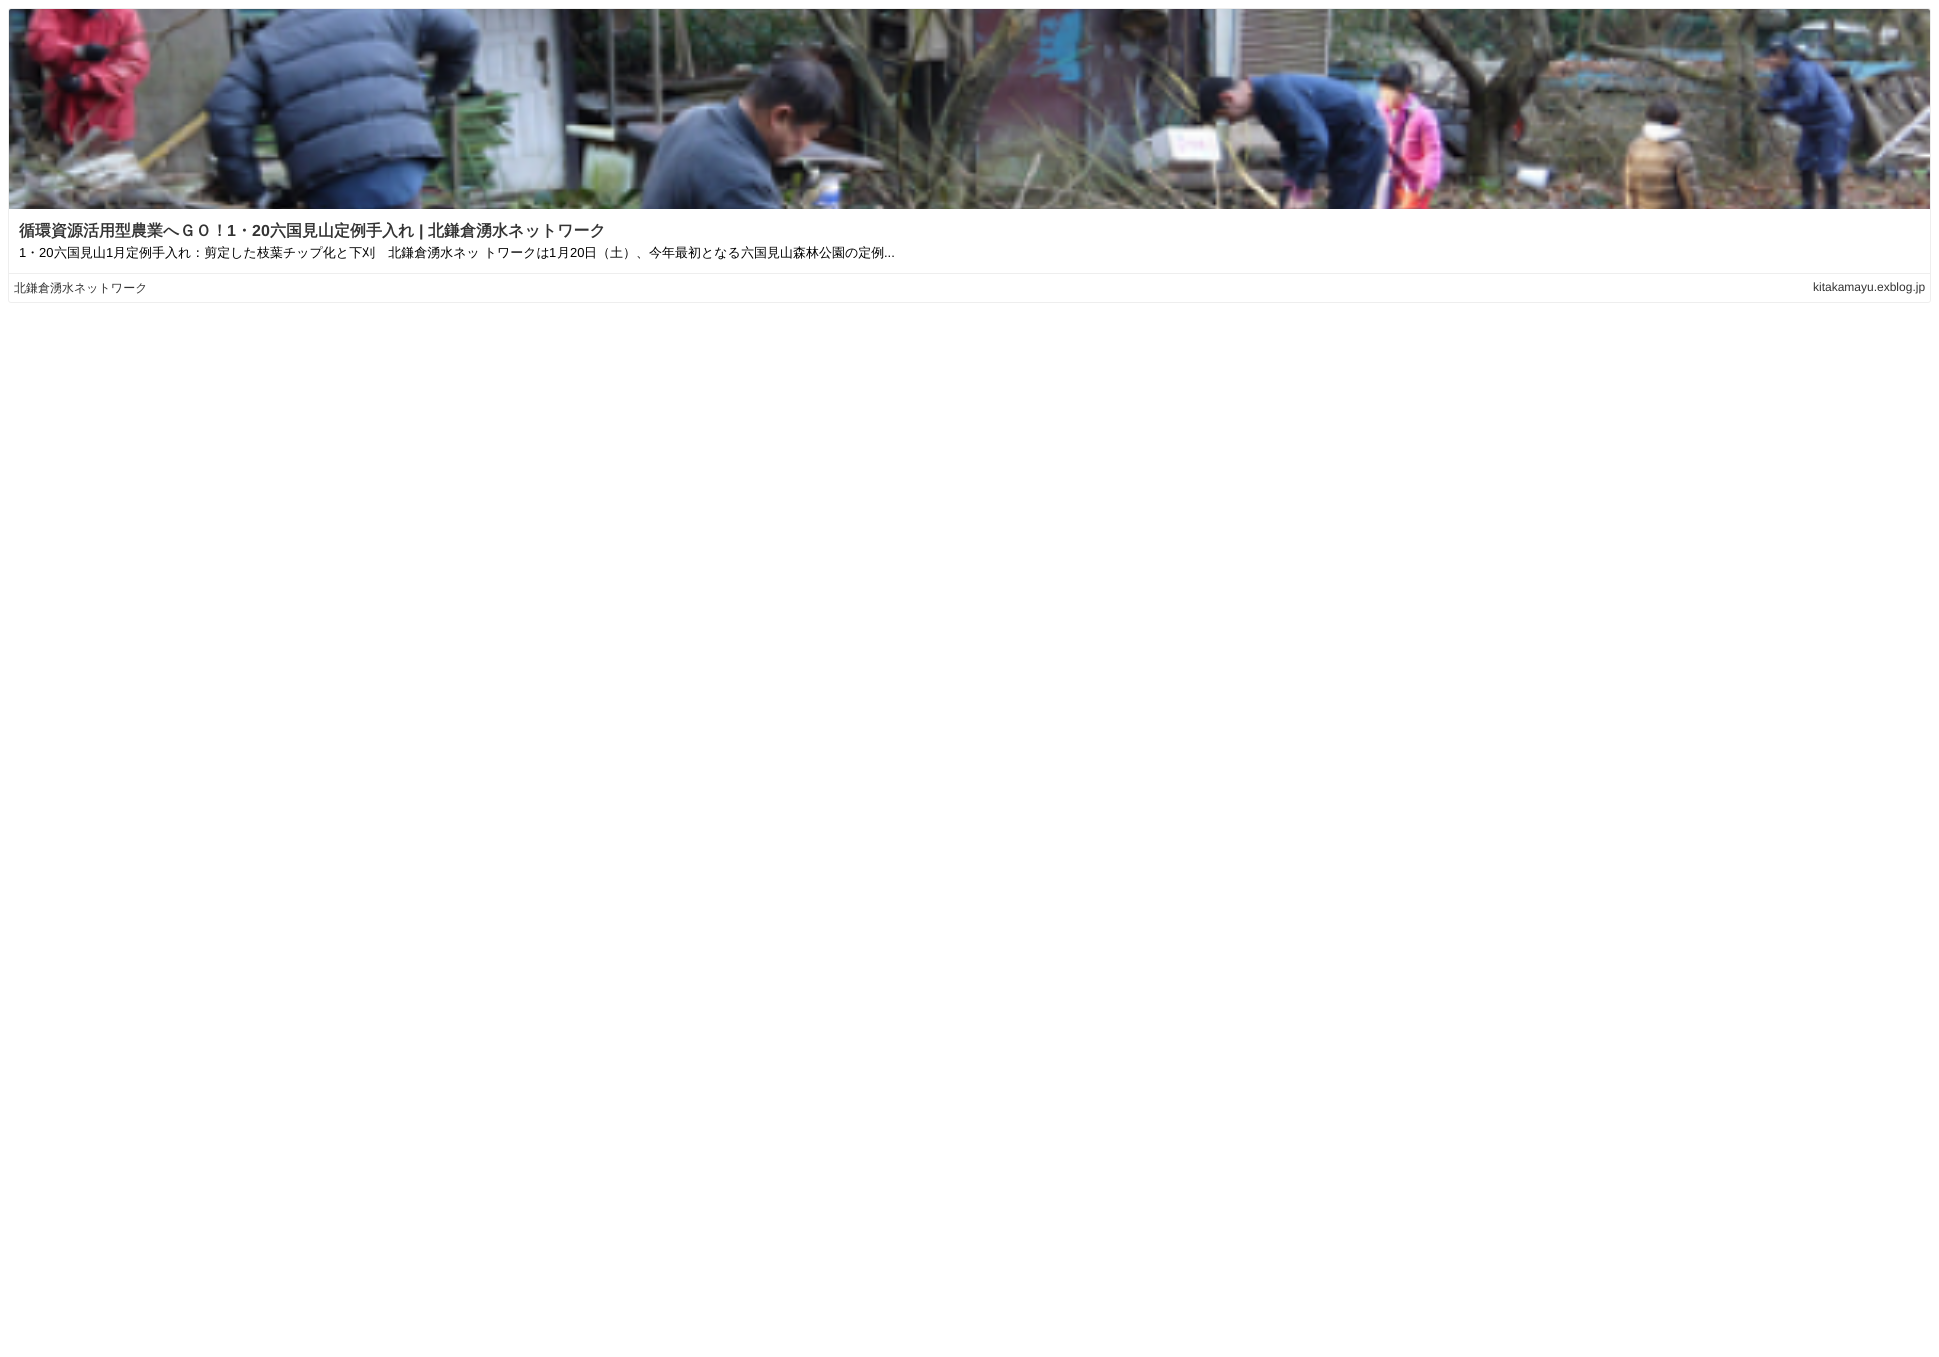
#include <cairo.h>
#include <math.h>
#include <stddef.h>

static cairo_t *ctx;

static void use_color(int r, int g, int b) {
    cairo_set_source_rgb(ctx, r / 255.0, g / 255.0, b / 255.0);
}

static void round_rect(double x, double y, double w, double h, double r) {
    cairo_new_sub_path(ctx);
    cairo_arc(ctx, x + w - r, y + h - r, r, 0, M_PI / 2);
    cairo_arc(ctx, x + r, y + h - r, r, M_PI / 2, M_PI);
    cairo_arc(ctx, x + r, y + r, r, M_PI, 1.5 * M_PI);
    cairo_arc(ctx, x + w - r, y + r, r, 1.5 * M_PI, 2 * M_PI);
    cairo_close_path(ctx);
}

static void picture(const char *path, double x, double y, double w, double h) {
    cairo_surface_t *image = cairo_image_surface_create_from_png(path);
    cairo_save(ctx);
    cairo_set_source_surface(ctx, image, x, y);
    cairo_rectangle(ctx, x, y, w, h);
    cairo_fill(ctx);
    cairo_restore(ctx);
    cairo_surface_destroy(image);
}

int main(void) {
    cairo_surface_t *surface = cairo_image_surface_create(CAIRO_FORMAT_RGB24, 1939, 1357);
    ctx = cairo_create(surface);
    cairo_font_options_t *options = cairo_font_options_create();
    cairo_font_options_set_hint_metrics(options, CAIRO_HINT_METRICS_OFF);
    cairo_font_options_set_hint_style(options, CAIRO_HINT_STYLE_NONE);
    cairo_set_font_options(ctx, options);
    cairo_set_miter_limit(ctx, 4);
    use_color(255, 255, 255);
    cairo_paint(ctx);
    round_rect(8.5, 8.5, 1922, 294, 2.5);
    use_color(238, 238, 238);
    cairo_set_line_width(ctx, 1);
    cairo_stroke(ctx);
    picture("img1.png", 9, 9, 1921, 200);
    cairo_select_font_face(ctx, "WenQuanYi Zen Hei", CAIRO_FONT_SLANT_NORMAL, CAIRO_FONT_WEIGHT_BOLD);
    cairo_set_font_size(ctx, 16);
    use_color(51, 51, 51);
    cairo_move_to(ctx, 19, 236);
    cairo_show_text(ctx, "循環資源活用型農業へＧＯ！");
    cairo_select_font_face(ctx, "Liberation Sans", CAIRO_FONT_SLANT_NORMAL, CAIRO_FONT_WEIGHT_BOLD);
    cairo_move_to(ctx, 227, 236);
    cairo_show_text(ctx, "1");
    cairo_select_font_face(ctx, "WenQuanYi Zen Hei", CAIRO_FONT_SLANT_NORMAL, CAIRO_FONT_WEIGHT_BOLD);
    cairo_move_to(ctx, 236, 236);
    cairo_show_text(ctx, "・");
    cairo_select_font_face(ctx, "Liberation Sans", CAIRO_FONT_SLANT_NORMAL, CAIRO_FONT_WEIGHT_BOLD);
    cairo_move_to(ctx, 252, 236);
    cairo_show_text(ctx, "20");
    cairo_select_font_face(ctx, "WenQuanYi Zen Hei", CAIRO_FONT_SLANT_NORMAL, CAIRO_FONT_WEIGHT_BOLD);
    cairo_move_to(ctx, 270, 236);
    cairo_show_text(ctx, "六国見山定例手入れ");
    cairo_select_font_face(ctx, "Liberation Sans", CAIRO_FONT_SLANT_NORMAL, CAIRO_FONT_WEIGHT_BOLD);
    cairo_move_to(ctx, 419, 236);
    cairo_show_text(ctx, "|");
    cairo_select_font_face(ctx, "WenQuanYi Zen Hei", CAIRO_FONT_SLANT_NORMAL, CAIRO_FONT_WEIGHT_BOLD);
    cairo_move_to(ctx, 428, 236);
    cairo_show_text(ctx, "北鎌倉湧水ネットワーク");
    cairo_select_font_face(ctx, "Liberation Sans", CAIRO_FONT_SLANT_NORMAL, CAIRO_FONT_WEIGHT_NORMAL);
    cairo_set_font_size(ctx, 13);
    use_color(0, 0, 0);
    cairo_move_to(ctx, 19, 257);
    cairo_show_text(ctx, "1");
    cairo_select_font_face(ctx, "WenQuanYi Zen Hei Medium", CAIRO_FONT_SLANT_NORMAL, CAIRO_FONT_WEIGHT_NORMAL);
    cairo_move_to(ctx, 26, 257);
    cairo_show_text(ctx, "・");
    cairo_select_font_face(ctx, "Liberation Sans", CAIRO_FONT_SLANT_NORMAL, CAIRO_FONT_WEIGHT_NORMAL);
    cairo_move_to(ctx, 39, 257);
    cairo_show_text(ctx, "20");
    cairo_select_font_face(ctx, "WenQuanYi Zen Hei Medium", CAIRO_FONT_SLANT_NORMAL, CAIRO_FONT_WEIGHT_NORMAL);
    cairo_move_to(ctx, 54, 257);
    cairo_show_text(ctx, "六国見山");
    cairo_select_font_face(ctx, "Liberation Sans", CAIRO_FONT_SLANT_NORMAL, CAIRO_FONT_WEIGHT_NORMAL);
    cairo_move_to(ctx, 106, 257);
    cairo_show_text(ctx, "1");
    cairo_select_font_face(ctx, "WenQuanYi Zen Hei Medium", CAIRO_FONT_SLANT_NORMAL, CAIRO_FONT_WEIGHT_NORMAL);
    cairo_move_to(ctx, 113, 257);
    cairo_show_text(ctx, "月定例手入れ：剪定した枝葉チップ化と下刈　北鎌倉湧水ネッ トワークは");
    cairo_select_font_face(ctx, "Liberation Sans", CAIRO_FONT_SLANT_NORMAL, CAIRO_FONT_WEIGHT_NORMAL);
    cairo_move_to(ctx, 549, 257);
    cairo_show_text(ctx, "1");
    cairo_select_font_face(ctx, "WenQuanYi Zen Hei Medium", CAIRO_FONT_SLANT_NORMAL, CAIRO_FONT_WEIGHT_NORMAL);
    cairo_move_to(ctx, 557, 257);
    cairo_show_text(ctx, "月");
    cairo_select_font_face(ctx, "Liberation Sans", CAIRO_FONT_SLANT_NORMAL, CAIRO_FONT_WEIGHT_NORMAL);
    cairo_move_to(ctx, 570, 257);
    cairo_show_text(ctx, "20");
    cairo_select_font_face(ctx, "WenQuanYi Zen Hei Medium", CAIRO_FONT_SLANT_NORMAL, CAIRO_FONT_WEIGHT_NORMAL);
    cairo_move_to(ctx, 584, 257);
    cairo_show_text(ctx, "日（土）、今年最初となる六国見山森林公園の定例");
    cairo_select_font_face(ctx, "Liberation Sans", CAIRO_FONT_SLANT_NORMAL, CAIRO_FONT_WEIGHT_NORMAL);
    cairo_move_to(ctx, 884, 257);
    cairo_show_text(ctx, "...");
    use_color(238, 238, 238);
    cairo_rectangle(ctx, 9, 273, 1921, 1);
    cairo_fill(ctx);
    cairo_select_font_face(ctx, "WenQuanYi Zen Hei Medium", CAIRO_FONT_SLANT_NORMAL, CAIRO_FONT_WEIGHT_NORMAL);
    cairo_set_font_size(ctx, 12);
    use_color(51, 51, 51);
    cairo_move_to(ctx, 14, 292);
    cairo_show_text(ctx, "北鎌倉湧水ネットワーク");
    cairo_select_font_face(ctx, "Liberation Sans", CAIRO_FONT_SLANT_NORMAL, CAIRO_FONT_WEIGHT_NORMAL);
    cairo_move_to(ctx, 1813, 291);
    cairo_show_text(ctx, "kitakamayu.exblog.jp");
    cairo_surface_write_to_png(surface, "result.png");
    cairo_font_options_destroy(options);
    cairo_destroy(ctx);
    cairo_surface_destroy(surface);
    return 0;
}
